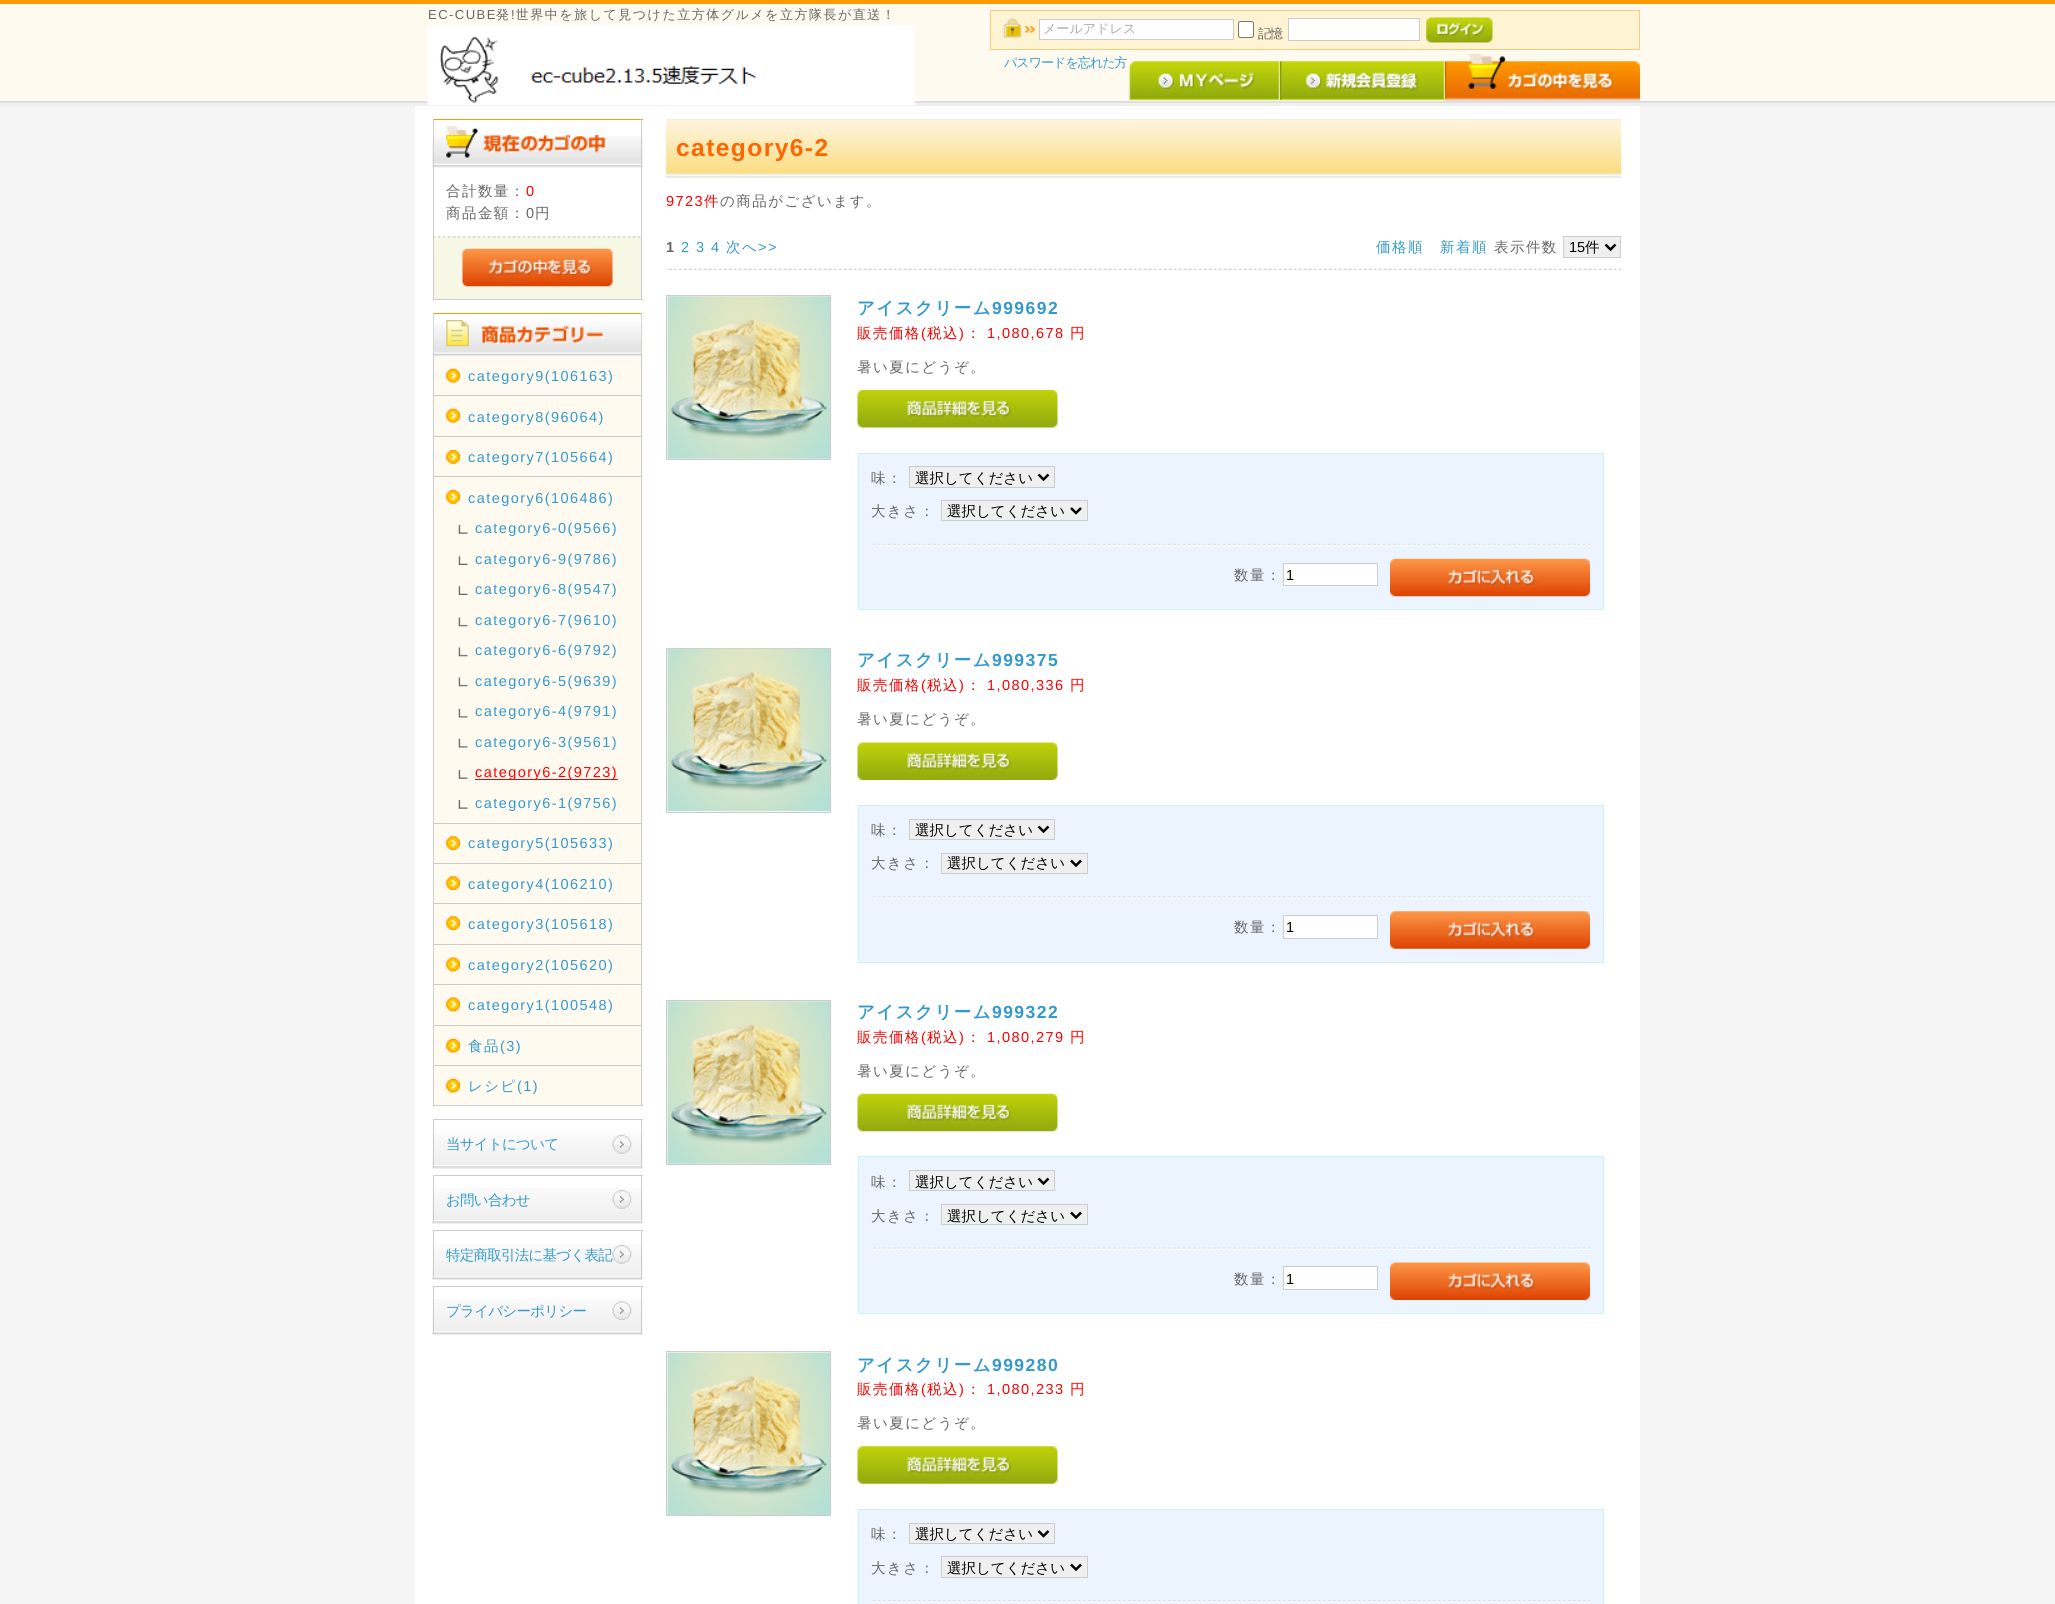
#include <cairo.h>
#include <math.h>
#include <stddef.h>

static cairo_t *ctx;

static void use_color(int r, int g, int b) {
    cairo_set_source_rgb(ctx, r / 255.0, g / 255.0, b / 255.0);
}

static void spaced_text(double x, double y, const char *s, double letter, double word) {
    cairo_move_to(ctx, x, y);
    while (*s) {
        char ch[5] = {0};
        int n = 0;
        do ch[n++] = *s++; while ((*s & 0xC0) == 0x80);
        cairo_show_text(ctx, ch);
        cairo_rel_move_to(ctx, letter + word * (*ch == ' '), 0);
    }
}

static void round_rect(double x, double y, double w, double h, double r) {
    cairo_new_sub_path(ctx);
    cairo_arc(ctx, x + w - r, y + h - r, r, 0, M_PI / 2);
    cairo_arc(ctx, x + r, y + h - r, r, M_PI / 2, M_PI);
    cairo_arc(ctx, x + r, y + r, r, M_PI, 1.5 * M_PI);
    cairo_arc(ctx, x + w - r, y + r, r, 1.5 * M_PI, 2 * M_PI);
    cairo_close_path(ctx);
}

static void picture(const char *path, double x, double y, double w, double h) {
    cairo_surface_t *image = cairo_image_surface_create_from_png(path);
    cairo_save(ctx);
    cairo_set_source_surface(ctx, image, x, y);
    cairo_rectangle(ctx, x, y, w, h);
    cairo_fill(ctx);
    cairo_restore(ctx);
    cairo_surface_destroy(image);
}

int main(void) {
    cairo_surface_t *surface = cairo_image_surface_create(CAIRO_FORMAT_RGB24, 2055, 1604);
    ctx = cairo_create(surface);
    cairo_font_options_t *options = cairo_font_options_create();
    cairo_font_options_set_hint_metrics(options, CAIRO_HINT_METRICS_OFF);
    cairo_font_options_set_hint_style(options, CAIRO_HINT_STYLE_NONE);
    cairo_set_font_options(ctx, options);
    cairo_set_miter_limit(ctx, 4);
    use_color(245, 245, 245);
    cairo_paint(ctx);
    use_color(255, 250, 240);
    cairo_rectangle(ctx, 0, 4, 2055, 96);
    cairo_fill(ctx);
    picture("img1.png", 0, 100, 2055, 6);
    use_color(255, 153, 0);
    cairo_rectangle(ctx, 0, 0, 2055, 4);
    cairo_fill(ctx);
    cairo_select_font_face(ctx, "Liberation Sans", CAIRO_FONT_SLANT_NORMAL, CAIRO_FONT_WEIGHT_NORMAL);
    cairo_set_font_size(ctx, 13.05);
    use_color(102, 102, 102);
    spaced_text(428, 19, "EC-CUBE", 1.45, 0);
    cairo_select_font_face(ctx, "WenQuanYi Zen Hei Medium", CAIRO_FONT_SLANT_NORMAL, CAIRO_FONT_WEIGHT_NORMAL);
    spaced_text(496, 19, "発 世界中を旅して見つけた立方体グルメを立方隊長が直送！", 1.45, 0);
    cairo_select_font_face(ctx, "Liberation Sans", CAIRO_FONT_SLANT_NORMAL, CAIRO_FONT_WEIGHT_NORMAL);
    spaced_text(511, 19, "!", 1.45, 0);
    picture("img2.png", 427, 25, 488, 80);
    use_color(254, 243, 211);
    cairo_rectangle(ctx, 990.5, 10.5, 649, 39);
    cairo_fill_preserve(ctx);
    use_color(255, 201, 121);
    cairo_set_line_width(ctx, 1);
    cairo_stroke(ctx);
    picture("img3.png", 1003, 18, 32, 20);
    use_color(255, 255, 255);
    cairo_rectangle(ctx, 1039.5, 19.5, 194, 20);
    cairo_fill_preserve(ctx);
    use_color(204, 204, 204);
    cairo_stroke(ctx);
    cairo_select_font_face(ctx, "WenQuanYi Zen Hei Medium", CAIRO_FONT_SLANT_NORMAL, CAIRO_FONT_WEIGHT_NORMAL);
    use_color(170, 170, 170);
    cairo_move_to(ctx, 1043, 33);
    cairo_show_text(ctx, "メールアドレス");
    use_color(255, 255, 255);
    round_rect(1238.5, 21.5, 15, 16, 2);
    cairo_fill_preserve(ctx);
    use_color(118, 118, 118);
    cairo_stroke(ctx);
    use_color(102, 102, 102);
    spaced_text(1258, 38, "記憶", -1, 0);
    use_color(255, 255, 255);
    cairo_rectangle(ctx, 1288.5, 18.5, 131, 22);
    cairo_fill_preserve(ctx);
    use_color(204, 204, 204);
    cairo_stroke(ctx);
    picture("img4.png", 1426, 17, 67, 26);
    use_color(51, 153, 204);
    spaced_text(1004, 67, "パスワードを忘れた方", -1, 0);
    picture("img5.png", 1128, 61, 152, 41);
    picture("img6.png", 1280, 61, 165, 41);
    picture("img7.png", 1445, 53, 195, 49);
    use_color(255, 255, 255);
    cairo_rectangle(ctx, 415, 106, 1225, 1498);
    cairo_fill(ctx);
    picture("img8.png", 432, 136, 211, 32);
    use_color(255, 153, 0);
    cairo_rectangle(ctx, 433, 119, 210, 1);
    cairo_fill(ctx);
    use_color(204, 204, 204);
    cairo_rectangle(ctx, 641, 119, 1, 181);
    cairo_fill(ctx);
    cairo_rectangle(ctx, 433, 119, 1, 49);
    cairo_fill(ctx);
    picture("img9.png", 446, 126, 161, 32);
    cairo_rectangle(ctx, 433, 299, 210, 1);
    cairo_fill(ctx);
    cairo_rectangle(ctx, 433, 168, 1, 132);
    cairo_fill(ctx);
    cairo_set_font_size(ctx, 14.5);
    use_color(102, 102, 102);
    spaced_text(446, 196, "合計数量：", 1.45, 0);
    cairo_select_font_face(ctx, "Liberation Sans", CAIRO_FONT_SLANT_NORMAL, CAIRO_FONT_WEIGHT_NORMAL);
    use_color(255, 0, 0);
    spaced_text(526, 196, "0", 1.45, 0);
    cairo_select_font_face(ctx, "WenQuanYi Zen Hei Medium", CAIRO_FONT_SLANT_NORMAL, CAIRO_FONT_WEIGHT_NORMAL);
    use_color(102, 102, 102);
    spaced_text(446, 218, "商品金額：", 1.45, 0);
    cairo_select_font_face(ctx, "Liberation Sans", CAIRO_FONT_SLANT_NORMAL, CAIRO_FONT_WEIGHT_NORMAL);
    spaced_text(526, 218, "0", 1.45, 0);
    cairo_select_font_face(ctx, "WenQuanYi Zen Hei Medium", CAIRO_FONT_SLANT_NORMAL, CAIRO_FONT_WEIGHT_NORMAL);
    spaced_text(535, 218, "円", 1.45, 0);
    use_color(247, 247, 230);
    cairo_rectangle(ctx, 434, 236, 207, 63);
    cairo_fill(ctx);
    picture("img10.png", 434, 236, 208, 2);
    picture("img11.png", 462, 248, 151, 39);
    use_color(255, 250, 240);
    cairo_rectangle(ctx, 434, 313, 209, 792);
    cairo_fill(ctx);
    use_color(204, 204, 204);
    cairo_rectangle(ctx, 641, 313, 1, 793);
    cairo_fill(ctx);
    cairo_rectangle(ctx, 433, 1105, 210, 1);
    cairo_fill(ctx);
    cairo_rectangle(ctx, 433, 313, 1, 793);
    cairo_fill(ctx);
    picture("img12.png", 433, 315, 209, 42);
    use_color(255, 153, 0);
    cairo_rectangle(ctx, 434, 313, 207, 1);
    cairo_fill(ctx);
    picture("img13.png", 446, 320, 158, 27);
    use_color(204, 204, 204);
    cairo_rectangle(ctx, 434, 395, 207, 1);
    cairo_fill(ctx);
    picture("img14.png", 446, 368, 14, 15);
    cairo_select_font_face(ctx, "Liberation Sans", CAIRO_FONT_SLANT_NORMAL, CAIRO_FONT_WEIGHT_NORMAL);
    use_color(51, 153, 204);
    spaced_text(468, 381, "category9(106163)", 1.45, 0);
    use_color(204, 204, 204);
    cairo_rectangle(ctx, 434, 436, 207, 1);
    cairo_fill(ctx);
    picture("img14.png", 446, 408, 14, 15);
    use_color(51, 153, 204);
    spaced_text(468, 422, "category8(96064)", 1.45, 0);
    use_color(204, 204, 204);
    cairo_rectangle(ctx, 434, 476, 207, 1);
    cairo_fill(ctx);
    picture("img15.png", 446, 450, 14, 14);
    use_color(51, 153, 204);
    spaced_text(468, 462, "category7(105664)", 1.45, 0);
    use_color(204, 204, 204);
    cairo_rectangle(ctx, 434, 823, 207, 1);
    cairo_fill(ctx);
    picture("img15.png", 446, 490, 14, 14);
    use_color(51, 153, 204);
    spaced_text(468, 503, "category6(106486)", 1.45, 0);
    picture("img16.png", 458, 525, 10, 9);
    spaced_text(475, 533, "category6-0(9566)", 1.45, 0);
    picture("img17.png", 458, 556, 10, 9);
    spaced_text(475, 564, "category6-9(9786)", 1.45, 0);
    picture("img17.png", 458, 586, 10, 9);
    spaced_text(475, 594, "category6-8(9547)", 1.45, 0);
    picture("img18.png", 458, 617, 10, 10);
    spaced_text(475, 625, "category6-7(9610)", 1.45, 0);
    picture("img18.png", 458, 647, 10, 10);
    spaced_text(475, 655, "category6-6(9792)", 1.45, 0);
    picture("img18.png", 458, 677, 10, 10);
    spaced_text(475, 686, "category6-5(9639)", 1.45, 0);
    picture("img19.png", 458, 708, 10, 10);
    spaced_text(475, 716, "category6-4(9791)", 1.45, 0);
    picture("img19.png", 458, 738, 10, 10);
    spaced_text(475, 747, "category6-3(9561)", 1.45, 0);
    picture("img16.png", 458, 770, 10, 9);
    use_color(255, 0, 0);
    cairo_rectangle(ctx, 475, 779, 143, 1);
    cairo_fill(ctx);
    spaced_text(475, 777, "category6-2(9723)", 1.45, 0);
    picture("img16.png", 458, 800, 10, 9);
    use_color(51, 153, 204);
    spaced_text(475, 808, "category6-1(9756)", 1.45, 0);
    use_color(204, 204, 204);
    cairo_rectangle(ctx, 434, 863, 207, 1);
    cairo_fill(ctx);
    picture("img20.png", 446, 836, 14, 14);
    use_color(51, 153, 204);
    spaced_text(468, 848, "category5(105633)", 1.45, 0);
    use_color(204, 204, 204);
    cairo_rectangle(ctx, 434, 903, 207, 1);
    cairo_fill(ctx);
    picture("img20.png", 446, 876, 14, 14);
    use_color(51, 153, 204);
    spaced_text(468, 889, "category4(106210)", 1.45, 0);
    use_color(204, 204, 204);
    cairo_rectangle(ctx, 434, 944, 207, 1);
    cairo_fill(ctx);
    picture("img20.png", 446, 916, 14, 14);
    use_color(51, 153, 204);
    spaced_text(468, 929, "category3(105618)", 1.45, 0);
    use_color(204, 204, 204);
    cairo_rectangle(ctx, 434, 984, 207, 1);
    cairo_fill(ctx);
    picture("img21.png", 446, 957, 14, 15);
    use_color(51, 153, 204);
    spaced_text(468, 970, "category2(105620)", 1.45, 0);
    use_color(204, 204, 204);
    cairo_rectangle(ctx, 434, 1025, 207, 1);
    cairo_fill(ctx);
    picture("img21.png", 446, 997, 14, 15);
    use_color(51, 153, 204);
    spaced_text(468, 1010, "category1(100548)", 1.45, 0);
    use_color(204, 204, 204);
    cairo_rectangle(ctx, 434, 1065, 207, 1);
    cairo_fill(ctx);
    picture("img14.png", 446, 1038, 14, 15);
    cairo_select_font_face(ctx, "WenQuanYi Zen Hei Medium", CAIRO_FONT_SLANT_NORMAL, CAIRO_FONT_WEIGHT_NORMAL);
    use_color(51, 153, 204);
    spaced_text(468, 1051, "食品", 1.45, 0);
    cairo_select_font_face(ctx, "Liberation Sans", CAIRO_FONT_SLANT_NORMAL, CAIRO_FONT_WEIGHT_NORMAL);
    spaced_text(500, 1051, "(3)", 1.45, 0);
    picture("img14.png", 446, 1078, 14, 15);
    cairo_select_font_face(ctx, "WenQuanYi Zen Hei Medium", CAIRO_FONT_SLANT_NORMAL, CAIRO_FONT_WEIGHT_NORMAL);
    spaced_text(468, 1091, "レシピ", 1.45, 0);
    cairo_select_font_face(ctx, "Liberation Sans", CAIRO_FONT_SLANT_NORMAL, CAIRO_FONT_WEIGHT_NORMAL);
    spaced_text(517, 1091, "(1)", 1.45, 0);
    picture("img22.png", 432, 1133, 211, 36);
    picture("img23.png", 612, 1135, 20, 19);
    use_color(204, 204, 204);
    cairo_rectangle(ctx, 433, 1119, 210, 1);
    cairo_fill(ctx);
    cairo_rectangle(ctx, 641, 1119, 1, 49);
    cairo_fill(ctx);
    cairo_rectangle(ctx, 433, 1119, 1, 49);
    cairo_fill(ctx);
    cairo_select_font_face(ctx, "WenQuanYi Zen Hei Medium", CAIRO_FONT_SLANT_NORMAL, CAIRO_FONT_WEIGHT_NORMAL);
    use_color(51, 153, 204);
    spaced_text(446, 1149, "当サイトについて", -0.75, 0);
    picture("img22.png", 432, 1188, 211, 36);
    picture("img23.png", 612, 1190, 20, 19);
    use_color(204, 204, 204);
    cairo_rectangle(ctx, 433, 1175, 210, 1);
    cairo_fill(ctx);
    cairo_rectangle(ctx, 641, 1175, 1, 48);
    cairo_fill(ctx);
    cairo_rectangle(ctx, 433, 1175, 1, 48);
    cairo_fill(ctx);
    use_color(51, 153, 204);
    spaced_text(446, 1205, "お問い合わせ", -0.75, 0);
    picture("img24.png", 432, 1244, 211, 36);
    picture("img25.png", 612, 1245, 20, 19);
    use_color(204, 204, 204);
    cairo_rectangle(ctx, 433, 1230, 210, 1);
    cairo_fill(ctx);
    cairo_rectangle(ctx, 641, 1230, 1, 49);
    cairo_fill(ctx);
    cairo_rectangle(ctx, 433, 1230, 1, 49);
    cairo_fill(ctx);
    use_color(51, 153, 204);
    spaced_text(446, 1260, "特定商取引法に基づく表記", -0.75, 0);
    picture("img24.png", 432, 1299, 211, 36);
    picture("img26.png", 612, 1301, 20, 19);
    use_color(204, 204, 204);
    cairo_rectangle(ctx, 433, 1286, 210, 1);
    cairo_fill(ctx);
    cairo_rectangle(ctx, 641, 1286, 1, 48);
    cairo_fill(ctx);
    cairo_rectangle(ctx, 433, 1286, 1, 48);
    cairo_fill(ctx);
    use_color(51, 153, 204);
    spaced_text(446, 1316, "プライバシーポリシー", -0.75, 0);
    use_color(254, 243, 216);
    cairo_rectangle(ctx, 666, 120, 955, 58);
    cairo_fill(ctx);
    picture("img27.png", 666, 126, 956, 52);
    use_color(235, 236, 237);
    cairo_rectangle(ctx, 666, 119, 955, 1);
    cairo_fill(ctx);
    cairo_select_font_face(ctx, "Liberation Sans", CAIRO_FONT_SLANT_NORMAL, CAIRO_FONT_WEIGHT_BOLD);
    cairo_set_font_size(ctx, 24.5);
    use_color(255, 102, 0);
    spaced_text(676, 156, "category6-2", 1.45, 0);
    cairo_select_font_face(ctx, "Liberation Sans", CAIRO_FONT_SLANT_NORMAL, CAIRO_FONT_WEIGHT_NORMAL);
    cairo_set_font_size(ctx, 14.5);
    use_color(255, 0, 0);
    spaced_text(666, 206, "9723", 1.45, 0);
    cairo_select_font_face(ctx, "WenQuanYi Zen Hei Medium", CAIRO_FONT_SLANT_NORMAL, CAIRO_FONT_WEIGHT_NORMAL);
    spaced_text(704, 206, "件", 1.45, 0);
    use_color(102, 102, 102);
    spaced_text(720, 206, "の商品がございます。", 1.45, 0);
    picture("img28.png", 666, 268, 956, 2);
    cairo_select_font_face(ctx, "Liberation Sans", CAIRO_FONT_SLANT_NORMAL, CAIRO_FONT_WEIGHT_BOLD);
    spaced_text(666, 252, "1", 1.45, 0);
    cairo_select_font_face(ctx, "Liberation Sans", CAIRO_FONT_SLANT_NORMAL, CAIRO_FONT_WEIGHT_NORMAL);
    use_color(51, 153, 204);
    spaced_text(681, 252, "2 3 4", 1.45, 0);
    cairo_select_font_face(ctx, "WenQuanYi Zen Hei Medium", CAIRO_FONT_SLANT_NORMAL, CAIRO_FONT_WEIGHT_NORMAL);
    spaced_text(726, 252, "次へ", 1.45, 0);
    cairo_select_font_face(ctx, "Liberation Sans", CAIRO_FONT_SLANT_NORMAL, CAIRO_FONT_WEIGHT_NORMAL);
    spaced_text(758, 252, ">>", 1.45, 0);
    cairo_select_font_face(ctx, "WenQuanYi Zen Hei Medium", CAIRO_FONT_SLANT_NORMAL, CAIRO_FONT_WEIGHT_NORMAL);
    spaced_text(1376, 252, "価格順", 1.45, 0);
    spaced_text(1440, 252, "新着順", 1.45, 0);
    use_color(102, 102, 102);
    spaced_text(1494, 252, "表示件数", 1.45, 0);
    use_color(239, 239, 239);
    cairo_rectangle(ctx, 1563.5, 236.5, 57, 21);
    cairo_fill_preserve(ctx);
    use_color(204, 204, 204);
    cairo_stroke(ctx);
    cairo_new_path(ctx);
    cairo_move_to(ctx, 1605.5, 244.5);
    cairo_line_to(ctx, 1610.5, 249.5);
    cairo_line_to(ctx, 1615.5, 244.5);
    use_color(0, 0, 0);
    cairo_set_line_width(ctx, 2.5);
    cairo_stroke(ctx);
    cairo_select_font_face(ctx, "Liberation Sans", CAIRO_FONT_SLANT_NORMAL, CAIRO_FONT_WEIGHT_NORMAL);
    cairo_move_to(ctx, 1569, 252);
    cairo_show_text(ctx, "15");
    cairo_select_font_face(ctx, "WenQuanYi Zen Hei Medium", CAIRO_FONT_SLANT_NORMAL, CAIRO_FONT_WEIGHT_NORMAL);
    cairo_move_to(ctx, 1585, 252);
    cairo_show_text(ctx, "件");
    cairo_rectangle(ctx, 666.5, 295.5, 164, 164);
    use_color(204, 204, 204);
    cairo_set_line_width(ctx, 1);
    cairo_stroke(ctx);
    picture("img29.png", 667, 296, 163, 163);
    cairo_select_font_face(ctx, "WenQuanYi Zen Hei", CAIRO_FONT_SLANT_NORMAL, CAIRO_FONT_WEIGHT_BOLD);
    cairo_set_font_size(ctx, 17.5);
    use_color(51, 153, 204);
    spaced_text(857, 314, "アイスクリーム", 1.45, 0);
    cairo_select_font_face(ctx, "Liberation Sans", CAIRO_FONT_SLANT_NORMAL, CAIRO_FONT_WEIGHT_BOLD);
    spaced_text(992, 314, "999692", 1.45, 0);
    cairo_select_font_face(ctx, "WenQuanYi Zen Hei Medium", CAIRO_FONT_SLANT_NORMAL, CAIRO_FONT_WEIGHT_NORMAL);
    cairo_set_font_size(ctx, 14.5);
    use_color(255, 0, 0);
    spaced_text(857, 338, "販売価格", 1.45, 0);
    cairo_select_font_face(ctx, "Liberation Sans", CAIRO_FONT_SLANT_NORMAL, CAIRO_FONT_WEIGHT_NORMAL);
    spaced_text(921, 338, "(", 1.45, 0);
    cairo_select_font_face(ctx, "WenQuanYi Zen Hei Medium", CAIRO_FONT_SLANT_NORMAL, CAIRO_FONT_WEIGHT_NORMAL);
    spaced_text(927, 338, "税込", 1.45, 0);
    cairo_select_font_face(ctx, "Liberation Sans", CAIRO_FONT_SLANT_NORMAL, CAIRO_FONT_WEIGHT_NORMAL);
    spaced_text(959, 338, ")", 1.45, 0);
    cairo_select_font_face(ctx, "WenQuanYi Zen Hei Medium", CAIRO_FONT_SLANT_NORMAL, CAIRO_FONT_WEIGHT_NORMAL);
    spaced_text(966, 338, "：", 1.45, 0);
    cairo_select_font_face(ctx, "Liberation Sans", CAIRO_FONT_SLANT_NORMAL, CAIRO_FONT_WEIGHT_NORMAL);
    spaced_text(987, 338, "1,080,678", 1.45, 0);
    cairo_select_font_face(ctx, "WenQuanYi Zen Hei Medium", CAIRO_FONT_SLANT_NORMAL, CAIRO_FONT_WEIGHT_NORMAL);
    spaced_text(1070, 338, "円", 1.45, 0);
    use_color(102, 102, 102);
    spaced_text(857, 372, "暑い夏にどうぞ。", 1.45, 0);
    picture("img30.png", 857, 390, 201, 38);
    use_color(236, 245, 255);
    cairo_rectangle(ctx, 858.5, 453.5, 745, 156);
    cairo_fill_preserve(ctx);
    use_color(206, 240, 244);
    cairo_stroke(ctx);
    picture("img31.png", 871, 543, 719, 4);
    use_color(102, 102, 102);
    spaced_text(871, 483, "味：", 1.45, 0);
    use_color(239, 239, 239);
    cairo_rectangle(ctx, 909.5, 466.5, 145, 21);
    cairo_fill_preserve(ctx);
    use_color(204, 204, 204);
    cairo_stroke(ctx);
    cairo_new_path(ctx);
    cairo_move_to(ctx, 1038.5, 474.5);
    cairo_line_to(ctx, 1043.5, 479.5);
    cairo_line_to(ctx, 1048.5, 474.5);
    use_color(0, 0, 0);
    cairo_set_line_width(ctx, 2.5);
    cairo_stroke(ctx);
    cairo_move_to(ctx, 915, 483);
    cairo_show_text(ctx, "選択してください");
    use_color(102, 102, 102);
    spaced_text(871, 516, "大きさ：", 1.45, 0);
    use_color(239, 239, 239);
    cairo_rectangle(ctx, 941.5, 500.5, 146, 20);
    cairo_fill_preserve(ctx);
    use_color(204, 204, 204);
    cairo_set_line_width(ctx, 1);
    cairo_stroke(ctx);
    cairo_new_path(ctx);
    cairo_move_to(ctx, 1071, 508);
    cairo_line_to(ctx, 1076, 513);
    cairo_line_to(ctx, 1081, 508);
    use_color(0, 0, 0);
    cairo_set_line_width(ctx, 2.5);
    cairo_stroke(ctx);
    cairo_move_to(ctx, 947, 516);
    cairo_show_text(ctx, "選択してください");
    use_color(102, 102, 102);
    spaced_text(1234, 580, "数量：", 1.45, 0);
    use_color(255, 255, 255);
    cairo_rectangle(ctx, 1283.5, 563.5, 94, 22);
    cairo_fill_preserve(ctx);
    use_color(204, 204, 204);
    cairo_set_line_width(ctx, 1);
    cairo_stroke(ctx);
    cairo_select_font_face(ctx, "Liberation Sans", CAIRO_FONT_SLANT_NORMAL, CAIRO_FONT_WEIGHT_NORMAL);
    use_color(0, 0, 0);
    cairo_move_to(ctx, 1286, 580);
    cairo_show_text(ctx, "1");
    picture("img32.png", 1390, 558, 200, 39);
    cairo_rectangle(ctx, 666.5, 648.5, 164, 164);
    use_color(204, 204, 204);
    cairo_stroke(ctx);
    picture("img33.png", 667, 648, 163, 164);
    cairo_select_font_face(ctx, "WenQuanYi Zen Hei", CAIRO_FONT_SLANT_NORMAL, CAIRO_FONT_WEIGHT_BOLD);
    cairo_set_font_size(ctx, 17.5);
    use_color(51, 153, 204);
    spaced_text(857, 666, "アイスクリーム", 1.45, 0);
    cairo_select_font_face(ctx, "Liberation Sans", CAIRO_FONT_SLANT_NORMAL, CAIRO_FONT_WEIGHT_BOLD);
    spaced_text(992, 666, "999375", 1.45, 0);
    cairo_select_font_face(ctx, "WenQuanYi Zen Hei Medium", CAIRO_FONT_SLANT_NORMAL, CAIRO_FONT_WEIGHT_NORMAL);
    cairo_set_font_size(ctx, 14.5);
    use_color(255, 0, 0);
    spaced_text(857, 690, "販売価格", 1.45, 0);
    cairo_select_font_face(ctx, "Liberation Sans", CAIRO_FONT_SLANT_NORMAL, CAIRO_FONT_WEIGHT_NORMAL);
    spaced_text(921, 690, "(", 1.45, 0);
    cairo_select_font_face(ctx, "WenQuanYi Zen Hei Medium", CAIRO_FONT_SLANT_NORMAL, CAIRO_FONT_WEIGHT_NORMAL);
    spaced_text(927, 690, "税込", 1.45, 0);
    cairo_select_font_face(ctx, "Liberation Sans", CAIRO_FONT_SLANT_NORMAL, CAIRO_FONT_WEIGHT_NORMAL);
    spaced_text(959, 690, ")", 1.45, 0);
    cairo_select_font_face(ctx, "WenQuanYi Zen Hei Medium", CAIRO_FONT_SLANT_NORMAL, CAIRO_FONT_WEIGHT_NORMAL);
    spaced_text(966, 690, "：", 1.45, 0);
    cairo_select_font_face(ctx, "Liberation Sans", CAIRO_FONT_SLANT_NORMAL, CAIRO_FONT_WEIGHT_NORMAL);
    spaced_text(987, 690, "1,080,336", 1.45, 0);
    cairo_select_font_face(ctx, "WenQuanYi Zen Hei Medium", CAIRO_FONT_SLANT_NORMAL, CAIRO_FONT_WEIGHT_NORMAL);
    spaced_text(1070, 690, "円", 1.45, 0);
    use_color(102, 102, 102);
    spaced_text(857, 724, "暑い夏にどうぞ。", 1.45, 0);
    picture("img34.png", 857, 742, 201, 38);
    use_color(236, 245, 255);
    cairo_rectangle(ctx, 858.5, 805.5, 745, 157);
    cairo_fill_preserve(ctx);
    use_color(206, 240, 244);
    cairo_stroke(ctx);
    picture("img35.png", 871, 896, 719, 3);
    use_color(102, 102, 102);
    spaced_text(871, 835, "味：", 1.45, 0);
    use_color(239, 239, 239);
    cairo_rectangle(ctx, 909.5, 819.5, 145, 20);
    cairo_fill_preserve(ctx);
    use_color(204, 204, 204);
    cairo_stroke(ctx);
    cairo_new_path(ctx);
    cairo_move_to(ctx, 1038.5, 826.5);
    cairo_line_to(ctx, 1043.5, 831.5);
    cairo_line_to(ctx, 1048.5, 826.5);
    use_color(0, 0, 0);
    cairo_set_line_width(ctx, 2.5);
    cairo_stroke(ctx);
    cairo_move_to(ctx, 915, 835);
    cairo_show_text(ctx, "選択してください");
    use_color(102, 102, 102);
    spaced_text(871, 868, "大きさ：", 1.45, 0);
    use_color(239, 239, 239);
    cairo_rectangle(ctx, 941.5, 853.5, 146, 20);
    cairo_fill_preserve(ctx);
    use_color(204, 204, 204);
    cairo_set_line_width(ctx, 1);
    cairo_stroke(ctx);
    cairo_new_path(ctx);
    cairo_move_to(ctx, 1071, 860.5);
    cairo_line_to(ctx, 1076, 865.5);
    cairo_line_to(ctx, 1081, 860.5);
    use_color(0, 0, 0);
    cairo_set_line_width(ctx, 2.5);
    cairo_stroke(ctx);
    cairo_move_to(ctx, 947, 868);
    cairo_show_text(ctx, "選択してください");
    use_color(102, 102, 102);
    spaced_text(1234, 932, "数量：", 1.45, 0);
    use_color(255, 255, 255);
    cairo_rectangle(ctx, 1283.5, 915.5, 94, 23);
    cairo_fill_preserve(ctx);
    use_color(204, 204, 204);
    cairo_set_line_width(ctx, 1);
    cairo_stroke(ctx);
    cairo_select_font_face(ctx, "Liberation Sans", CAIRO_FONT_SLANT_NORMAL, CAIRO_FONT_WEIGHT_NORMAL);
    use_color(0, 0, 0);
    cairo_move_to(ctx, 1286, 932);
    cairo_show_text(ctx, "1");
    picture("img36.png", 1390, 911, 200, 38);
    cairo_rectangle(ctx, 666.5, 1000.5, 164, 164);
    use_color(204, 204, 204);
    cairo_stroke(ctx);
    picture("img29.png", 667, 1001, 163, 163);
    cairo_select_font_face(ctx, "WenQuanYi Zen Hei", CAIRO_FONT_SLANT_NORMAL, CAIRO_FONT_WEIGHT_BOLD);
    cairo_set_font_size(ctx, 17.5);
    use_color(51, 153, 204);
    spaced_text(857, 1018, "アイスクリーム", 1.45, 0);
    cairo_select_font_face(ctx, "Liberation Sans", CAIRO_FONT_SLANT_NORMAL, CAIRO_FONT_WEIGHT_BOLD);
    spaced_text(992, 1018, "999322", 1.45, 0);
    cairo_select_font_face(ctx, "WenQuanYi Zen Hei Medium", CAIRO_FONT_SLANT_NORMAL, CAIRO_FONT_WEIGHT_NORMAL);
    cairo_set_font_size(ctx, 14.5);
    use_color(255, 0, 0);
    spaced_text(857, 1042, "販売価格", 1.45, 0);
    cairo_select_font_face(ctx, "Liberation Sans", CAIRO_FONT_SLANT_NORMAL, CAIRO_FONT_WEIGHT_NORMAL);
    spaced_text(921, 1042, "(", 1.45, 0);
    cairo_select_font_face(ctx, "WenQuanYi Zen Hei Medium", CAIRO_FONT_SLANT_NORMAL, CAIRO_FONT_WEIGHT_NORMAL);
    spaced_text(927, 1042, "税込", 1.45, 0);
    cairo_select_font_face(ctx, "Liberation Sans", CAIRO_FONT_SLANT_NORMAL, CAIRO_FONT_WEIGHT_NORMAL);
    spaced_text(959, 1042, ")", 1.45, 0);
    cairo_select_font_face(ctx, "WenQuanYi Zen Hei Medium", CAIRO_FONT_SLANT_NORMAL, CAIRO_FONT_WEIGHT_NORMAL);
    spaced_text(966, 1042, "：", 1.45, 0);
    cairo_select_font_face(ctx, "Liberation Sans", CAIRO_FONT_SLANT_NORMAL, CAIRO_FONT_WEIGHT_NORMAL);
    spaced_text(987, 1042, "1,080,279", 1.45, 0);
    cairo_select_font_face(ctx, "WenQuanYi Zen Hei Medium", CAIRO_FONT_SLANT_NORMAL, CAIRO_FONT_WEIGHT_NORMAL);
    spaced_text(1070, 1042, "円", 1.45, 0);
    use_color(102, 102, 102);
    spaced_text(857, 1076, "暑い夏にどうぞ。", 1.45, 0);
    picture("img37.png", 857, 1093, 201, 39);
    use_color(236, 245, 255);
    cairo_rectangle(ctx, 858.5, 1156.5, 745, 157);
    cairo_fill_preserve(ctx);
    use_color(206, 240, 244);
    cairo_stroke(ctx);
    picture("img38.png", 871, 1247, 719, 3);
    use_color(102, 102, 102);
    spaced_text(871, 1187, "味：", 1.45, 0);
    use_color(239, 239, 239);
    cairo_rectangle(ctx, 909.5, 1170.5, 145, 20);
    cairo_fill_preserve(ctx);
    use_color(204, 204, 204);
    cairo_stroke(ctx);
    cairo_new_path(ctx);
    cairo_move_to(ctx, 1038.5, 1178.5);
    cairo_line_to(ctx, 1043.5, 1183.5);
    cairo_line_to(ctx, 1048.5, 1178.5);
    use_color(0, 0, 0);
    cairo_set_line_width(ctx, 2.5);
    cairo_stroke(ctx);
    cairo_move_to(ctx, 915, 1187);
    cairo_show_text(ctx, "選択してください");
    use_color(102, 102, 102);
    spaced_text(871, 1221, "大きさ：", 1.45, 0);
    use_color(239, 239, 239);
    cairo_rectangle(ctx, 941.5, 1204.5, 146, 20);
    cairo_fill_preserve(ctx);
    use_color(204, 204, 204);
    cairo_set_line_width(ctx, 1);
    cairo_stroke(ctx);
    cairo_new_path(ctx);
    cairo_move_to(ctx, 1071, 1212.5);
    cairo_line_to(ctx, 1076, 1217.5);
    cairo_line_to(ctx, 1081, 1212.5);
    use_color(0, 0, 0);
    cairo_set_line_width(ctx, 2.5);
    cairo_stroke(ctx);
    cairo_move_to(ctx, 947, 1221);
    cairo_show_text(ctx, "選択してください");
    use_color(102, 102, 102);
    spaced_text(1234, 1284, "数量：", 1.45, 0);
    use_color(255, 255, 255);
    cairo_rectangle(ctx, 1283.5, 1266.5, 94, 23);
    cairo_fill_preserve(ctx);
    use_color(204, 204, 204);
    cairo_set_line_width(ctx, 1);
    cairo_stroke(ctx);
    cairo_select_font_face(ctx, "Liberation Sans", CAIRO_FONT_SLANT_NORMAL, CAIRO_FONT_WEIGHT_NORMAL);
    use_color(0, 0, 0);
    cairo_move_to(ctx, 1286, 1284);
    cairo_show_text(ctx, "1");
    picture("img39.png", 1390, 1262, 200, 38);
    cairo_rectangle(ctx, 666.5, 1351.5, 164, 164);
    use_color(204, 204, 204);
    cairo_stroke(ctx);
    picture("img40.png", 667, 1352, 163, 163);
    cairo_select_font_face(ctx, "WenQuanYi Zen Hei", CAIRO_FONT_SLANT_NORMAL, CAIRO_FONT_WEIGHT_BOLD);
    cairo_set_font_size(ctx, 17.5);
    use_color(51, 153, 204);
    spaced_text(857, 1371, "アイスクリーム", 1.45, 0);
    cairo_select_font_face(ctx, "Liberation Sans", CAIRO_FONT_SLANT_NORMAL, CAIRO_FONT_WEIGHT_BOLD);
    spaced_text(992, 1371, "999280", 1.45, 0);
    cairo_select_font_face(ctx, "WenQuanYi Zen Hei Medium", CAIRO_FONT_SLANT_NORMAL, CAIRO_FONT_WEIGHT_NORMAL);
    cairo_set_font_size(ctx, 14.5);
    use_color(255, 0, 0);
    spaced_text(857, 1394, "販売価格", 1.45, 0);
    cairo_select_font_face(ctx, "Liberation Sans", CAIRO_FONT_SLANT_NORMAL, CAIRO_FONT_WEIGHT_NORMAL);
    spaced_text(921, 1394, "(", 1.45, 0);
    cairo_select_font_face(ctx, "WenQuanYi Zen Hei Medium", CAIRO_FONT_SLANT_NORMAL, CAIRO_FONT_WEIGHT_NORMAL);
    spaced_text(927, 1394, "税込", 1.45, 0);
    cairo_select_font_face(ctx, "Liberation Sans", CAIRO_FONT_SLANT_NORMAL, CAIRO_FONT_WEIGHT_NORMAL);
    spaced_text(959, 1394, ")", 1.45, 0);
    cairo_select_font_face(ctx, "WenQuanYi Zen Hei Medium", CAIRO_FONT_SLANT_NORMAL, CAIRO_FONT_WEIGHT_NORMAL);
    spaced_text(966, 1394, "：", 1.45, 0);
    cairo_select_font_face(ctx, "Liberation Sans", CAIRO_FONT_SLANT_NORMAL, CAIRO_FONT_WEIGHT_NORMAL);
    spaced_text(987, 1394, "1,080,233", 1.45, 0);
    cairo_select_font_face(ctx, "WenQuanYi Zen Hei Medium", CAIRO_FONT_SLANT_NORMAL, CAIRO_FONT_WEIGHT_NORMAL);
    spaced_text(1070, 1394, "円", 1.45, 0);
    use_color(102, 102, 102);
    spaced_text(857, 1428, "暑い夏にどうぞ。", 1.45, 0);
    picture("img41.png", 857, 1446, 201, 38);
    use_color(236, 245, 255);
    cairo_rectangle(ctx, 858.5, 1509.5, 745, 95);
    cairo_fill_preserve(ctx);
    use_color(206, 240, 244);
    cairo_stroke(ctx);
    picture("img42.png", 871, 1600, 719, 3);
    use_color(102, 102, 102);
    spaced_text(871, 1539, "味：", 1.45, 0);
    use_color(239, 239, 239);
    cairo_rectangle(ctx, 909.5, 1523.5, 145, 20);
    cairo_fill_preserve(ctx);
    use_color(204, 204, 204);
    cairo_stroke(ctx);
    cairo_new_path(ctx);
    cairo_move_to(ctx, 1038.5, 1531);
    cairo_line_to(ctx, 1043.5, 1536);
    cairo_line_to(ctx, 1048.5, 1531);
    use_color(0, 0, 0);
    cairo_set_line_width(ctx, 2.5);
    cairo_stroke(ctx);
    cairo_move_to(ctx, 915, 1539);
    cairo_show_text(ctx, "選択してください");
    use_color(102, 102, 102);
    spaced_text(871, 1573, "大きさ：", 1.45, 0);
    use_color(239, 239, 239);
    cairo_rectangle(ctx, 941.5, 1556.5, 146, 21);
    cairo_fill_preserve(ctx);
    use_color(204, 204, 204);
    cairo_set_line_width(ctx, 1);
    cairo_stroke(ctx);
    cairo_new_path(ctx);
    cairo_move_to(ctx, 1071, 1564.5);
    cairo_line_to(ctx, 1076, 1569.5);
    cairo_line_to(ctx, 1081, 1564.5);
    use_color(0, 0, 0);
    cairo_set_line_width(ctx, 2.5);
    cairo_stroke(ctx);
    cairo_move_to(ctx, 947, 1573);
    cairo_show_text(ctx, "選択してください");
    cairo_surface_write_to_png(surface, "result.png");
    cairo_font_options_destroy(options);
    cairo_destroy(ctx);
    cairo_surface_destroy(surface);
    return 0;
}
